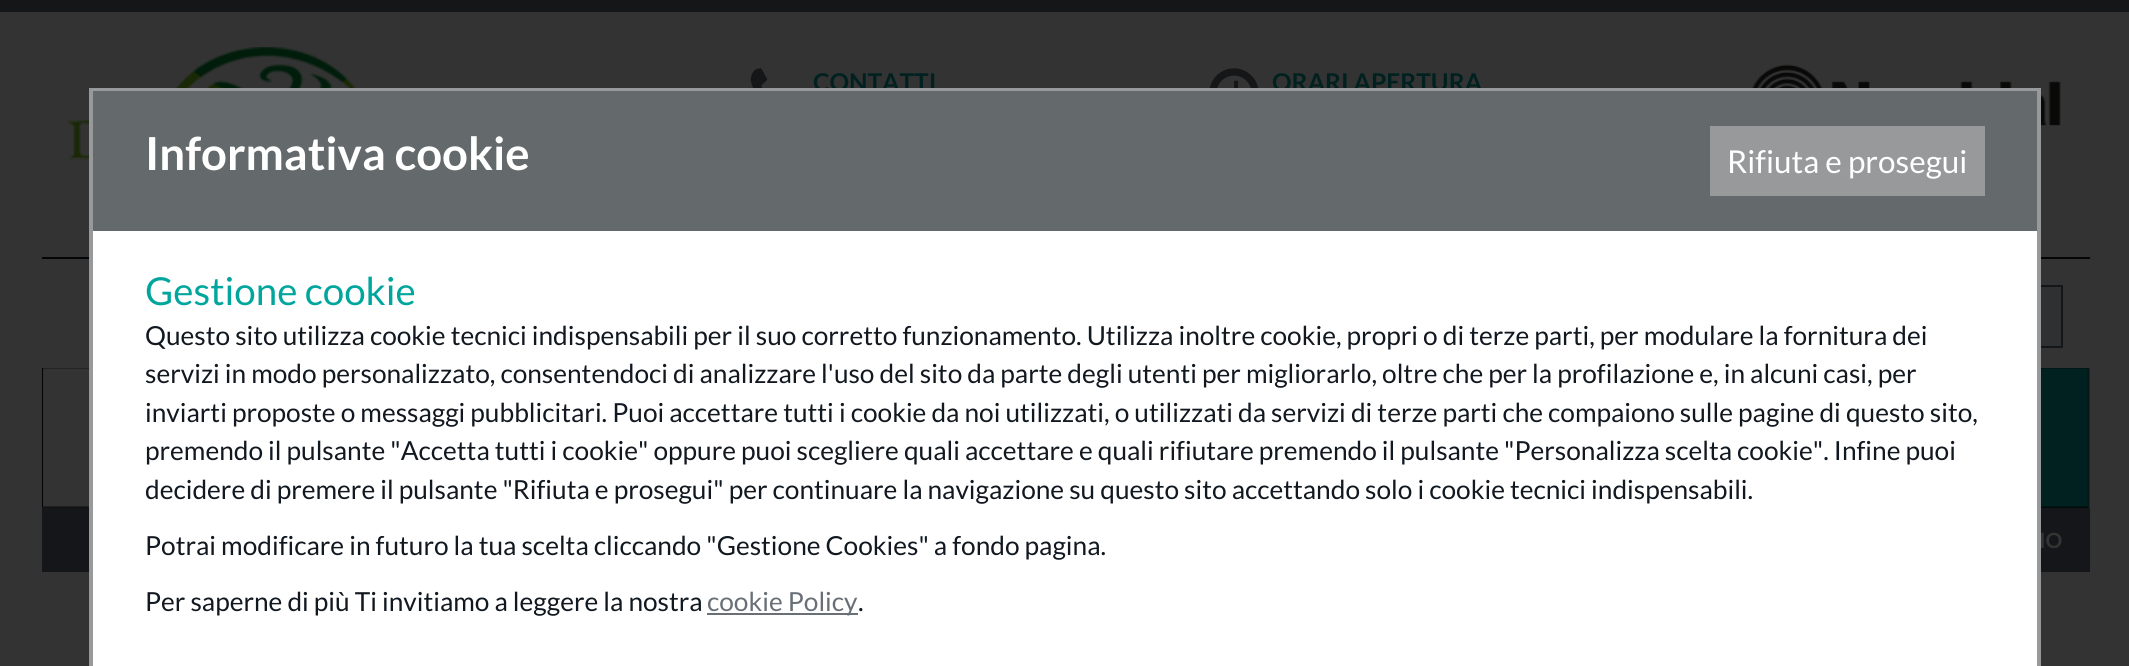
#include <cairo.h>
#include <math.h>
#include <stddef.h>

static cairo_t *ctx;

static void use_color(int r, int g, int b) {
    cairo_set_source_rgb(ctx, r / 255.0, g / 255.0, b / 255.0);
}

static void picture(const char *path, double x, double y, double w, double h) {
    cairo_surface_t *image = cairo_image_surface_create_from_png(path);
    cairo_save(ctx);
    cairo_set_source_surface(ctx, image, x, y);
    cairo_rectangle(ctx, x, y, w, h);
    cairo_fill(ctx);
    cairo_restore(ctx);
    cairo_surface_destroy(image);
}

int main(void) {
    cairo_surface_t *surface = cairo_image_surface_create(CAIRO_FORMAT_RGB24, 2129, 666);
    ctx = cairo_create(surface);
    cairo_font_options_t *options = cairo_font_options_create();
    cairo_font_options_set_hint_metrics(options, CAIRO_HINT_METRICS_OFF);
    cairo_font_options_set_hint_style(options, CAIRO_HINT_STYLE_NONE);
    cairo_set_font_options(ctx, options);
    cairo_set_miter_limit(ctx, 4);
    use_color(51, 51, 51);
    cairo_paint(ctx);
    use_color(21, 22, 24);
    cairo_rectangle(ctx, 0, 0, 2129, 12);
    cairo_fill(ctx);
    use_color(3, 5, 6);
    cairo_rectangle(ctx, 42, 257, 2048, 2);
    cairo_fill(ctx);
    picture("img1.png", 67, 47, 289, 113);
    picture("img2.png", 750, 68, 18, 20);
    cairo_select_font_face(ctx, "Lato", CAIRO_FONT_SLANT_NORMAL, CAIRO_FONT_WEIGHT_BOLD);
    cairo_set_font_size(ctx, 24.5);
    use_color(0, 33, 31);
    cairo_move_to(ctx, 813, 91);
    cairo_show_text(ctx, "CONTATTI");
    picture("img3.png", 1209, 68, 50, 20);
    cairo_move_to(ctx, 1272, 91);
    cairo_show_text(ctx, "ORARI APERTURA");
    picture("img4.png", 1752, 64, 309, 63);
    use_color(47, 48, 50);
    cairo_rectangle(ctx, 2041, 287, 20, 59);
    cairo_fill(ctx);
    cairo_rectangle(ctx, 1776, 286, 286, 61);
    use_color(21, 22, 24);
    cairo_stroke(ctx);
    picture("img5.png", 42, 368, 2048, 140);
    use_color(20, 22, 26);
    cairo_rectangle(ctx, 42, 508, 2048, 64);
    cairo_fill(ctx);
    cairo_set_font_size(ctx, 21);
    use_color(51, 51, 51);
    cairo_move_to(ctx, 2039, 548);
    cairo_show_text(ctx, "IO");
    use_color(255, 255, 255);
    cairo_rectangle(ctx, 93, 231, 1944, 435);
    cairo_fill(ctx);
    cairo_rectangle(ctx, 91, 90, 1948, 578);
    use_color(152, 153, 155);
    cairo_set_line_width(ctx, 4);
    cairo_stroke(ctx);
    use_color(100, 106, 107);
    cairo_rectangle(ctx, 93, 91, 1944, 140);
    cairo_fill(ctx);
    cairo_set_font_size(ctx, 45.5);
    use_color(255, 255, 255);
    cairo_move_to(ctx, 145, 170);
    cairo_show_text(ctx, "Informativa cookie");
    use_color(152, 153, 155);
    cairo_rectangle(ctx, 1710, 126, 275, 70);
    cairo_fill(ctx);
    cairo_select_font_face(ctx, "Lato", CAIRO_FONT_SLANT_NORMAL, CAIRO_FONT_WEIGHT_NORMAL);
    cairo_set_font_size(ctx, 31.5);
    use_color(255, 255, 255);
    cairo_move_to(ctx, 1727, 173);
    cairo_show_text(ctx, "Rifiuta e prosegui");
    cairo_set_font_size(ctx, 38.5);
    use_color(0, 166, 157);
    cairo_move_to(ctx, 145, 305);
    cairo_show_text(ctx, "Gestione cookie");
    cairo_set_font_size(ctx, 26.25);
    use_color(17, 24, 32);
    cairo_move_to(ctx, 145, 345);
    cairo_show_text(ctx, "Questo sito utilizza cookie tecnici indispensabili per il suo corretto funzionamento. Utilizza inoltre cookie, propri o di terze parti, per modulare la fornitura dei");
    cairo_move_to(ctx, 145, 383);
    cairo_show_text(ctx, "servizi in modo personalizzato, consentendoci di analizzare l'uso del sito da parte degli utenti per migliorarlo, oltre che per la profilazione e, in alcuni casi, per");
    cairo_move_to(ctx, 145, 422);
    cairo_show_text(ctx, "inviarti proposte o messaggi pubblicitari. Puoi accettare tutti i cookie da noi utilizzati, o utilizzati da servizi di terze parti che compaiono sulle pagine di questo sito,");
    cairo_move_to(ctx, 145, 460);
    cairo_show_text(ctx, "premendo il pulsante \"Accetta tutti i cookie\" oppure puoi scegliere quali accettare e quali rifiutare premendo il pulsante \"Personalizza scelta cookie\". Infine puoi");
    cairo_move_to(ctx, 145, 499);
    cairo_show_text(ctx, "decidere di premere il pulsante \"Rifiuta e prosegui\" per continuare la navigazione su questo sito accettando solo i cookie tecnici indispensabili.");
    cairo_move_to(ctx, 145, 555);
    cairo_show_text(ctx, "Potrai modificare in futuro la tua scelta cliccando \"Gestione Cookies\" a fondo pagina.");
    cairo_move_to(ctx, 145, 611);
    cairo_show_text(ctx, "Per saperne di più Ti invitiamo a leggere la nostra");
    use_color(104, 111, 119);
    cairo_rectangle(ctx, 707, 613, 151, 2);
    cairo_fill(ctx);
    cairo_move_to(ctx, 707, 611);
    cairo_show_text(ctx, "cookie Policy");
    use_color(17, 24, 32);
    cairo_move_to(ctx, 858, 611);
    cairo_show_text(ctx, ".");
    cairo_surface_write_to_png(surface, "result.png");
    cairo_font_options_destroy(options);
    cairo_destroy(ctx);
    cairo_surface_destroy(surface);
    return 0;
}
